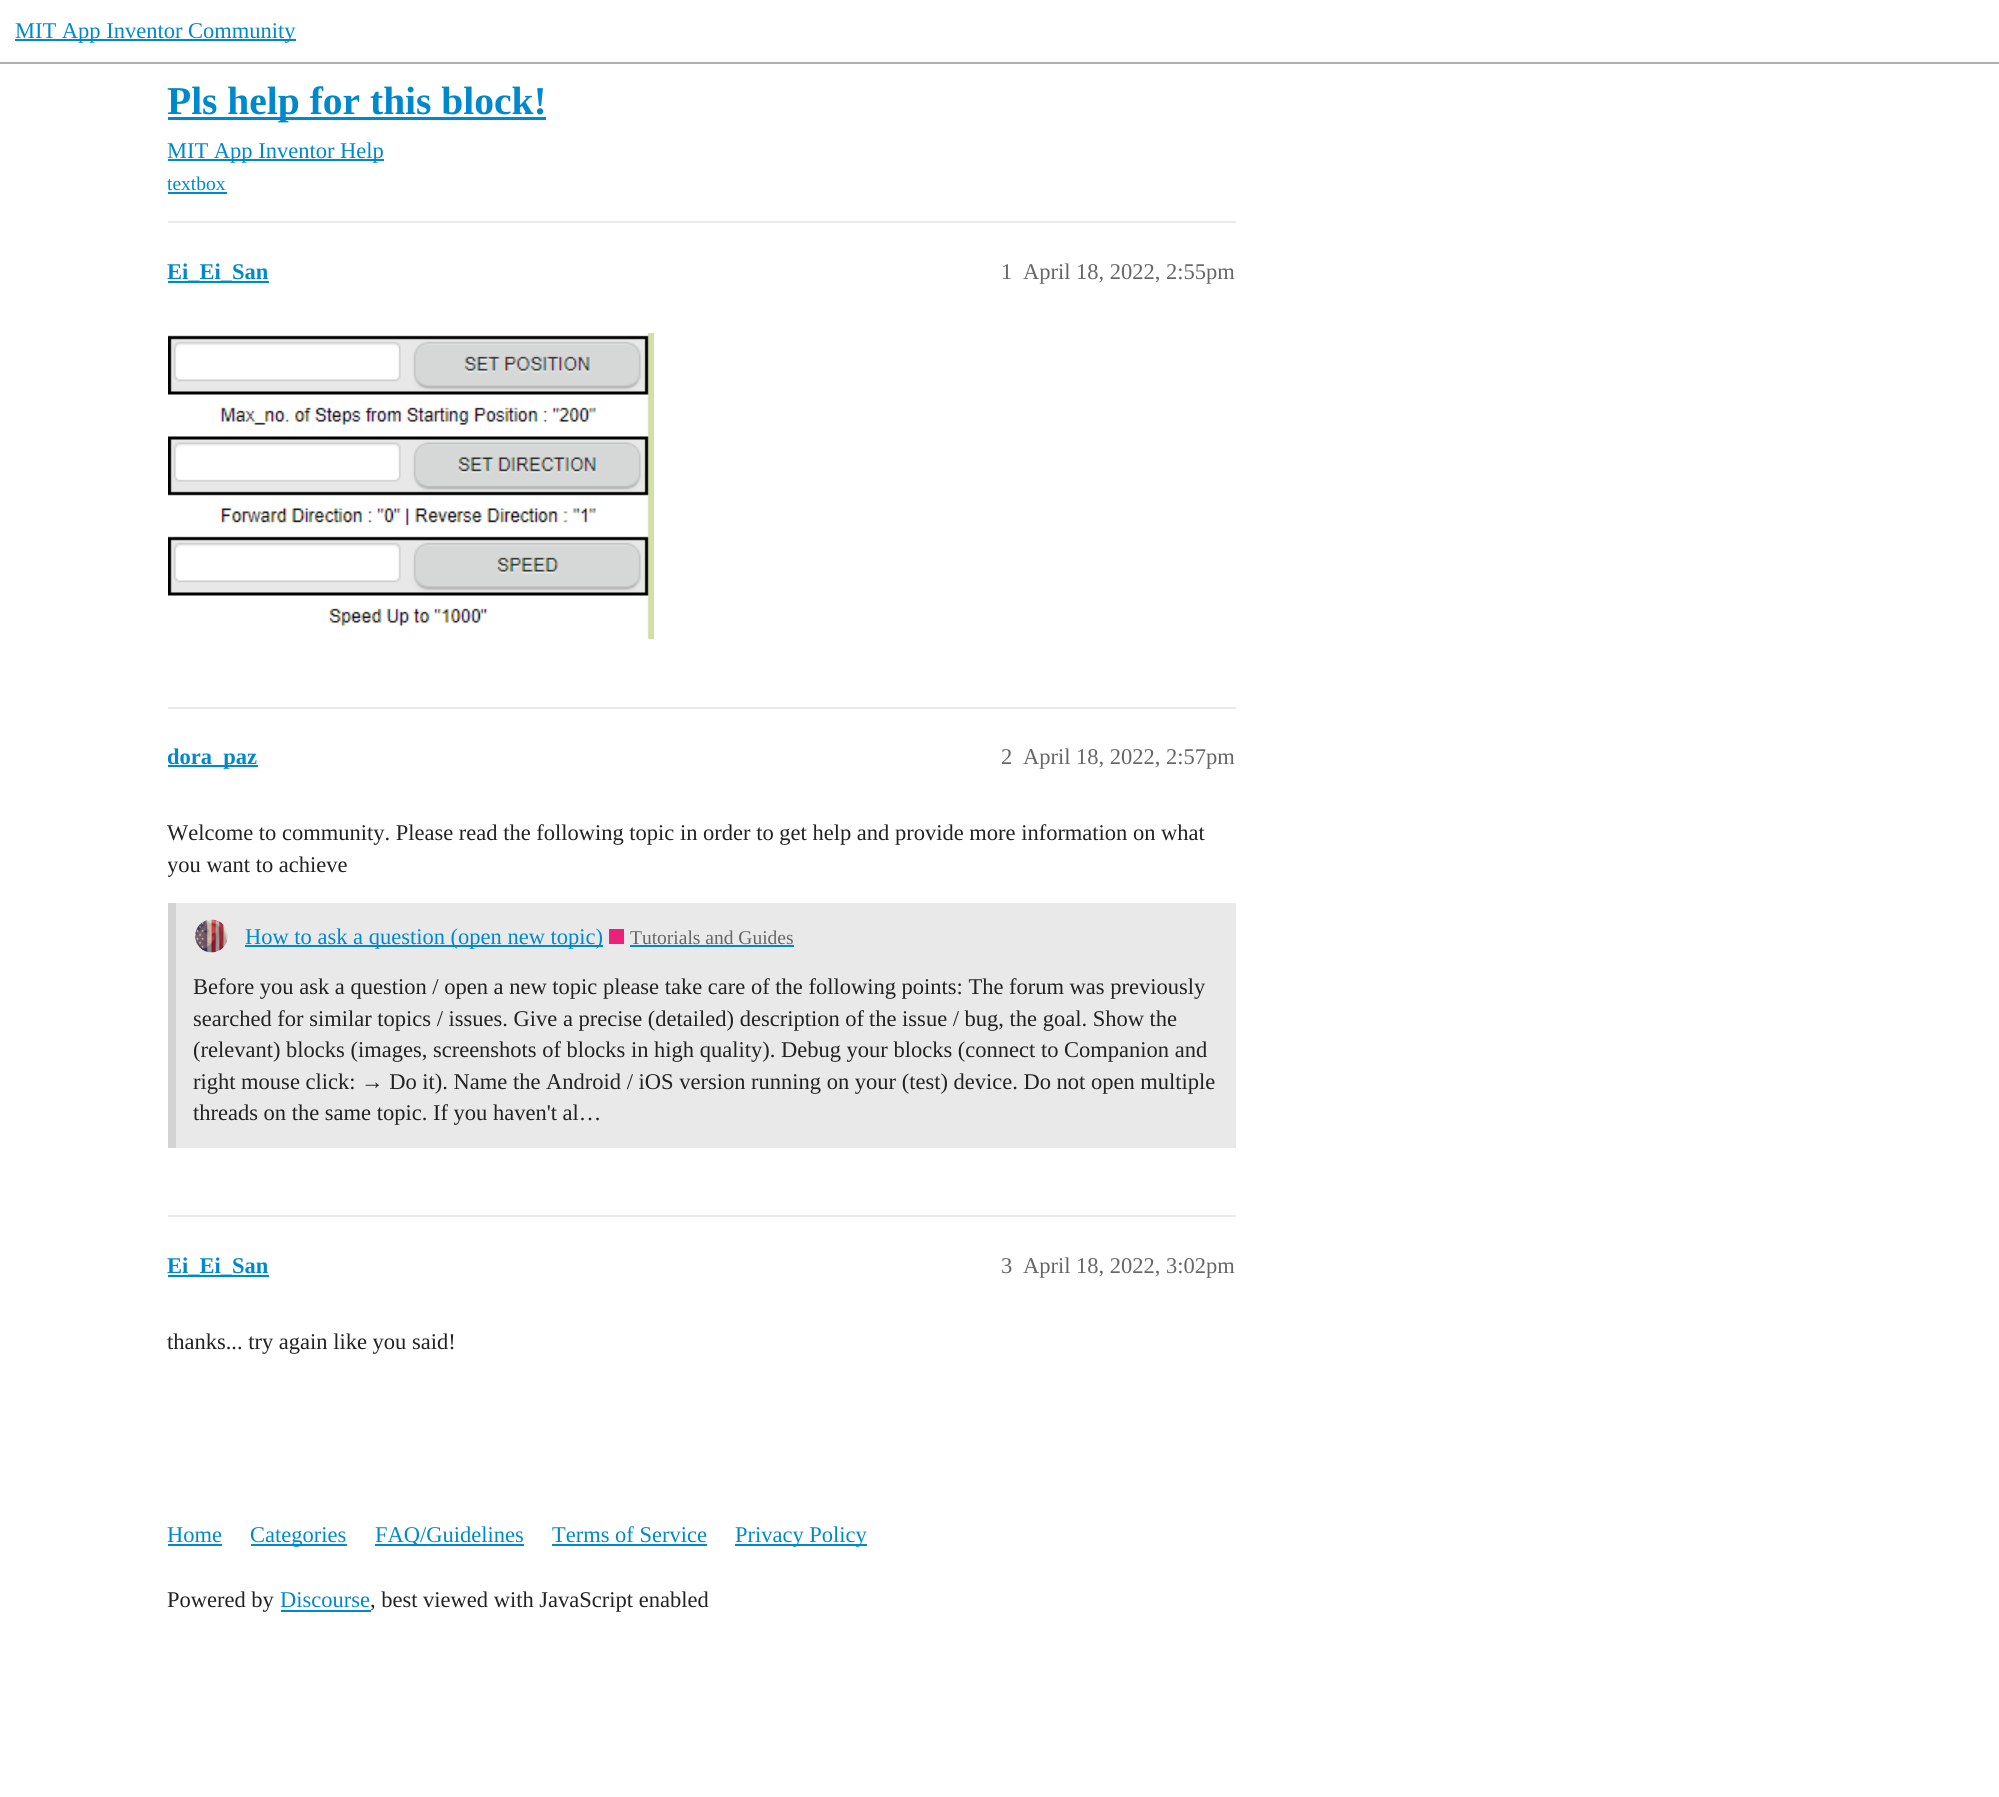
#include <cairo.h>
#include <math.h>
#include <stddef.h>

static cairo_t *ctx;

static void use_color(int r, int g, int b) {
    cairo_set_source_rgb(ctx, r / 255.0, g / 255.0, b / 255.0);
}

static void picture(const char *path, double x, double y, double w, double h) {
    cairo_surface_t *image = cairo_image_surface_create_from_png(path);
    cairo_save(ctx);
    cairo_set_source_surface(ctx, image, x, y);
    cairo_rectangle(ctx, x, y, w, h);
    cairo_fill(ctx);
    cairo_restore(ctx);
    cairo_surface_destroy(image);
}

int main(void) {
    cairo_surface_t *surface = cairo_image_surface_create(CAIRO_FORMAT_RGB24, 1999, 1797);
    ctx = cairo_create(surface);
    cairo_font_options_t *options = cairo_font_options_create();
    cairo_font_options_set_hint_metrics(options, CAIRO_HINT_METRICS_OFF);
    cairo_font_options_set_hint_style(options, CAIRO_HINT_STYLE_NONE);
    cairo_set_font_options(ctx, options);
    cairo_set_miter_limit(ctx, 4);
    use_color(255, 255, 255);
    cairo_paint(ctx);
    use_color(175, 175, 175);
    cairo_rectangle(ctx, 0, 62, 1999, 2);
    cairo_fill(ctx);
    use_color(0, 136, 204);
    cairo_rectangle(ctx, 15, 39, 281, 2);
    cairo_fill(ctx);
    cairo_select_font_face(ctx, "Liberation Serif", CAIRO_FONT_SLANT_NORMAL, CAIRO_FONT_WEIGHT_NORMAL);
    cairo_set_font_size(ctx, 22.5);
    cairo_move_to(ctx, 15, 38);
    cairo_show_text(ctx, "MIT App Inventor Community");
    cairo_rectangle(ctx, 168, 117, 378, 3);
    cairo_fill(ctx);
    cairo_select_font_face(ctx, "Liberation Serif", CAIRO_FONT_SLANT_NORMAL, CAIRO_FONT_WEIGHT_BOLD);
    cairo_set_font_size(ctx, 39.5);
    cairo_move_to(ctx, 167, 114);
    cairo_show_text(ctx, "Pls help for this block!");
    cairo_rectangle(ctx, 168, 159, 216, 2);
    cairo_fill(ctx);
    cairo_select_font_face(ctx, "Liberation Serif", CAIRO_FONT_SLANT_NORMAL, CAIRO_FONT_WEIGHT_NORMAL);
    cairo_set_font_size(ctx, 22.5);
    cairo_move_to(ctx, 167, 158);
    cairo_show_text(ctx, "MIT App Inventor Help");
    cairo_set_font_size(ctx, 19.5);
    cairo_move_to(ctx, 167, 190);
    cairo_show_text(ctx, "textbox");
    cairo_rectangle(ctx, 168, 192, 59, 2);
    cairo_fill(ctx);
    use_color(233, 233, 233);
    cairo_rectangle(ctx, 168, 221, 1068, 2);
    cairo_fill(ctx);
    use_color(0, 136, 204);
    cairo_rectangle(ctx, 168, 281, 101, 2);
    cairo_fill(ctx);
    cairo_select_font_face(ctx, "Liberation Serif", CAIRO_FONT_SLANT_NORMAL, CAIRO_FONT_WEIGHT_BOLD);
    cairo_set_font_size(ctx, 22.5);
    cairo_move_to(ctx, 167, 279);
    cairo_show_text(ctx, "Ei_Ei_San");
    cairo_select_font_face(ctx, "Liberation Serif", CAIRO_FONT_SLANT_NORMAL, CAIRO_FONT_WEIGHT_NORMAL);
    use_color(102, 102, 102);
    cairo_move_to(ctx, 1001, 279);
    cairo_show_text(ctx, "1");
    cairo_move_to(ctx, 1023, 279);
    cairo_show_text(ctx, "April 18, 2022, 2:55pm");
    picture("img1.png", 168, 333, 486, 306);
    use_color(233, 233, 233);
    cairo_rectangle(ctx, 168, 707, 1068, 2);
    cairo_fill(ctx);
    use_color(0, 136, 204);
    cairo_rectangle(ctx, 168, 765, 90, 2);
    cairo_fill(ctx);
    cairo_select_font_face(ctx, "Liberation Serif", CAIRO_FONT_SLANT_NORMAL, CAIRO_FONT_WEIGHT_BOLD);
    cairo_move_to(ctx, 167, 764);
    cairo_show_text(ctx, "dora_paz");
    cairo_select_font_face(ctx, "Liberation Serif", CAIRO_FONT_SLANT_NORMAL, CAIRO_FONT_WEIGHT_NORMAL);
    use_color(102, 102, 102);
    cairo_move_to(ctx, 1001, 764);
    cairo_show_text(ctx, "2");
    cairo_move_to(ctx, 1023, 764);
    cairo_show_text(ctx, "April 18, 2022, 2:57pm");
    use_color(34, 34, 34);
    cairo_move_to(ctx, 167, 840);
    cairo_show_text(ctx, "Welcome to community. Please read the following topic in order to get help and provide more information on what");
    cairo_save(ctx);
    cairo_rectangle(ctx, 168, 795, 1068, 375);
    cairo_clip(ctx);
    cairo_move_to(ctx, 167, 872);
    cairo_show_text(ctx, "you want to achieve");
    cairo_restore(ctx);
    use_color(233, 233, 233);
    cairo_rectangle(ctx, 176, 903, 1060, 245);
    cairo_fill(ctx);
    use_color(211, 211, 211);
    cairo_rectangle(ctx, 168, 903, 8, 245);
    cairo_fill(ctx);
    picture("img2.png", 195, 919, 33, 34);
    use_color(0, 136, 204);
    cairo_rectangle(ctx, 245, 945, 358, 2);
    cairo_fill(ctx);
    cairo_move_to(ctx, 245, 944);
    cairo_show_text(ctx, "How to ask a question (open new topic)");
    use_color(237, 32, 123);
    cairo_rectangle(ctx, 609, 929, 15, 15);
    cairo_fill(ctx);
    cairo_set_font_size(ctx, 19.5);
    use_color(102, 102, 102);
    cairo_move_to(ctx, 630, 944);
    cairo_show_text(ctx, "Tutorials and Guides");
    use_color(0, 136, 204);
    cairo_rectangle(ctx, 630, 945, 164, 2);
    cairo_fill(ctx);
    cairo_set_font_size(ctx, 22.5);
    use_color(34, 34, 34);
    cairo_move_to(ctx, 193, 994);
    cairo_show_text(ctx, "Before you ask a question / open a new topic please take care of the following points: The forum was previously");
    cairo_move_to(ctx, 193, 1026);
    cairo_show_text(ctx, "searched for similar topics / issues. Give a precise (detailed) description of");
    cairo_move_to(ctx, 869, 1026);
    cairo_show_text(ctx, "the issue / bug, the goal. Show the");
    cairo_move_to(ctx, 193, 1057);
    cairo_show_text(ctx, "(relevant) blocks (images, screenshots of blocks in high quality). Debug your blocks (connect to Companion and");
    cairo_move_to(ctx, 193, 1089);
    cairo_show_text(ctx, "right mouse click: → Do it). Name the Android / iOS version running on your (test) device. Do not open multiple");
    cairo_move_to(ctx, 193, 1120);
    cairo_show_text(ctx, "threads on the same topic. If you haven't al…");
    use_color(233, 233, 233);
    cairo_rectangle(ctx, 168, 1215, 1068, 2);
    cairo_fill(ctx);
    use_color(0, 136, 204);
    cairo_rectangle(ctx, 168, 1275, 101, 2);
    cairo_fill(ctx);
    cairo_select_font_face(ctx, "Liberation Serif", CAIRO_FONT_SLANT_NORMAL, CAIRO_FONT_WEIGHT_BOLD);
    cairo_move_to(ctx, 167, 1273);
    cairo_show_text(ctx, "Ei_Ei_San");
    cairo_select_font_face(ctx, "Liberation Serif", CAIRO_FONT_SLANT_NORMAL, CAIRO_FONT_WEIGHT_NORMAL);
    use_color(102, 102, 102);
    cairo_move_to(ctx, 1001, 1273);
    cairo_show_text(ctx, "3");
    cairo_move_to(ctx, 1023, 1273);
    cairo_show_text(ctx, "April 18, 2022, 3:02pm");
    use_color(34, 34, 34);
    cairo_move_to(ctx, 167, 1349);
    cairo_show_text(ctx, "thanks... try again like you said!");
    use_color(0, 136, 204);
    cairo_move_to(ctx, 167, 1542);
    cairo_show_text(ctx, "Home");
    cairo_rectangle(ctx, 168, 1544, 54, 2);
    cairo_fill(ctx);
    cairo_rectangle(ctx, 251, 1544, 96, 2);
    cairo_fill(ctx);
    cairo_move_to(ctx, 250, 1542);
    cairo_show_text(ctx, "Categories");
    cairo_rectangle(ctx, 375, 1544, 149, 2);
    cairo_fill(ctx);
    cairo_move_to(ctx, 375, 1542);
    cairo_show_text(ctx, "FAQ/Guidelines");
    cairo_move_to(ctx, 552, 1542);
    cairo_show_text(ctx, "Terms of Service");
    cairo_rectangle(ctx, 552, 1544, 155, 2);
    cairo_fill(ctx);
    cairo_rectangle(ctx, 735, 1544, 132, 2);
    cairo_fill(ctx);
    cairo_move_to(ctx, 735, 1542);
    cairo_show_text(ctx, "Privacy Policy");
    use_color(34, 34, 34);
    cairo_move_to(ctx, 167, 1607);
    cairo_show_text(ctx, "Powered by");
    use_color(0, 136, 204);
    cairo_move_to(ctx, 280, 1607);
    cairo_show_text(ctx, "Discourse");
    cairo_rectangle(ctx, 281, 1610, 90, 2);
    cairo_fill(ctx);
    use_color(34, 34, 34);
    cairo_move_to(ctx, 370, 1607);
    cairo_show_text(ctx, ", best viewed with JavaScript enabled");
    cairo_surface_write_to_png(surface, "result.png");
    cairo_font_options_destroy(options);
    cairo_destroy(ctx);
    cairo_surface_destroy(surface);
    return 0;
}
